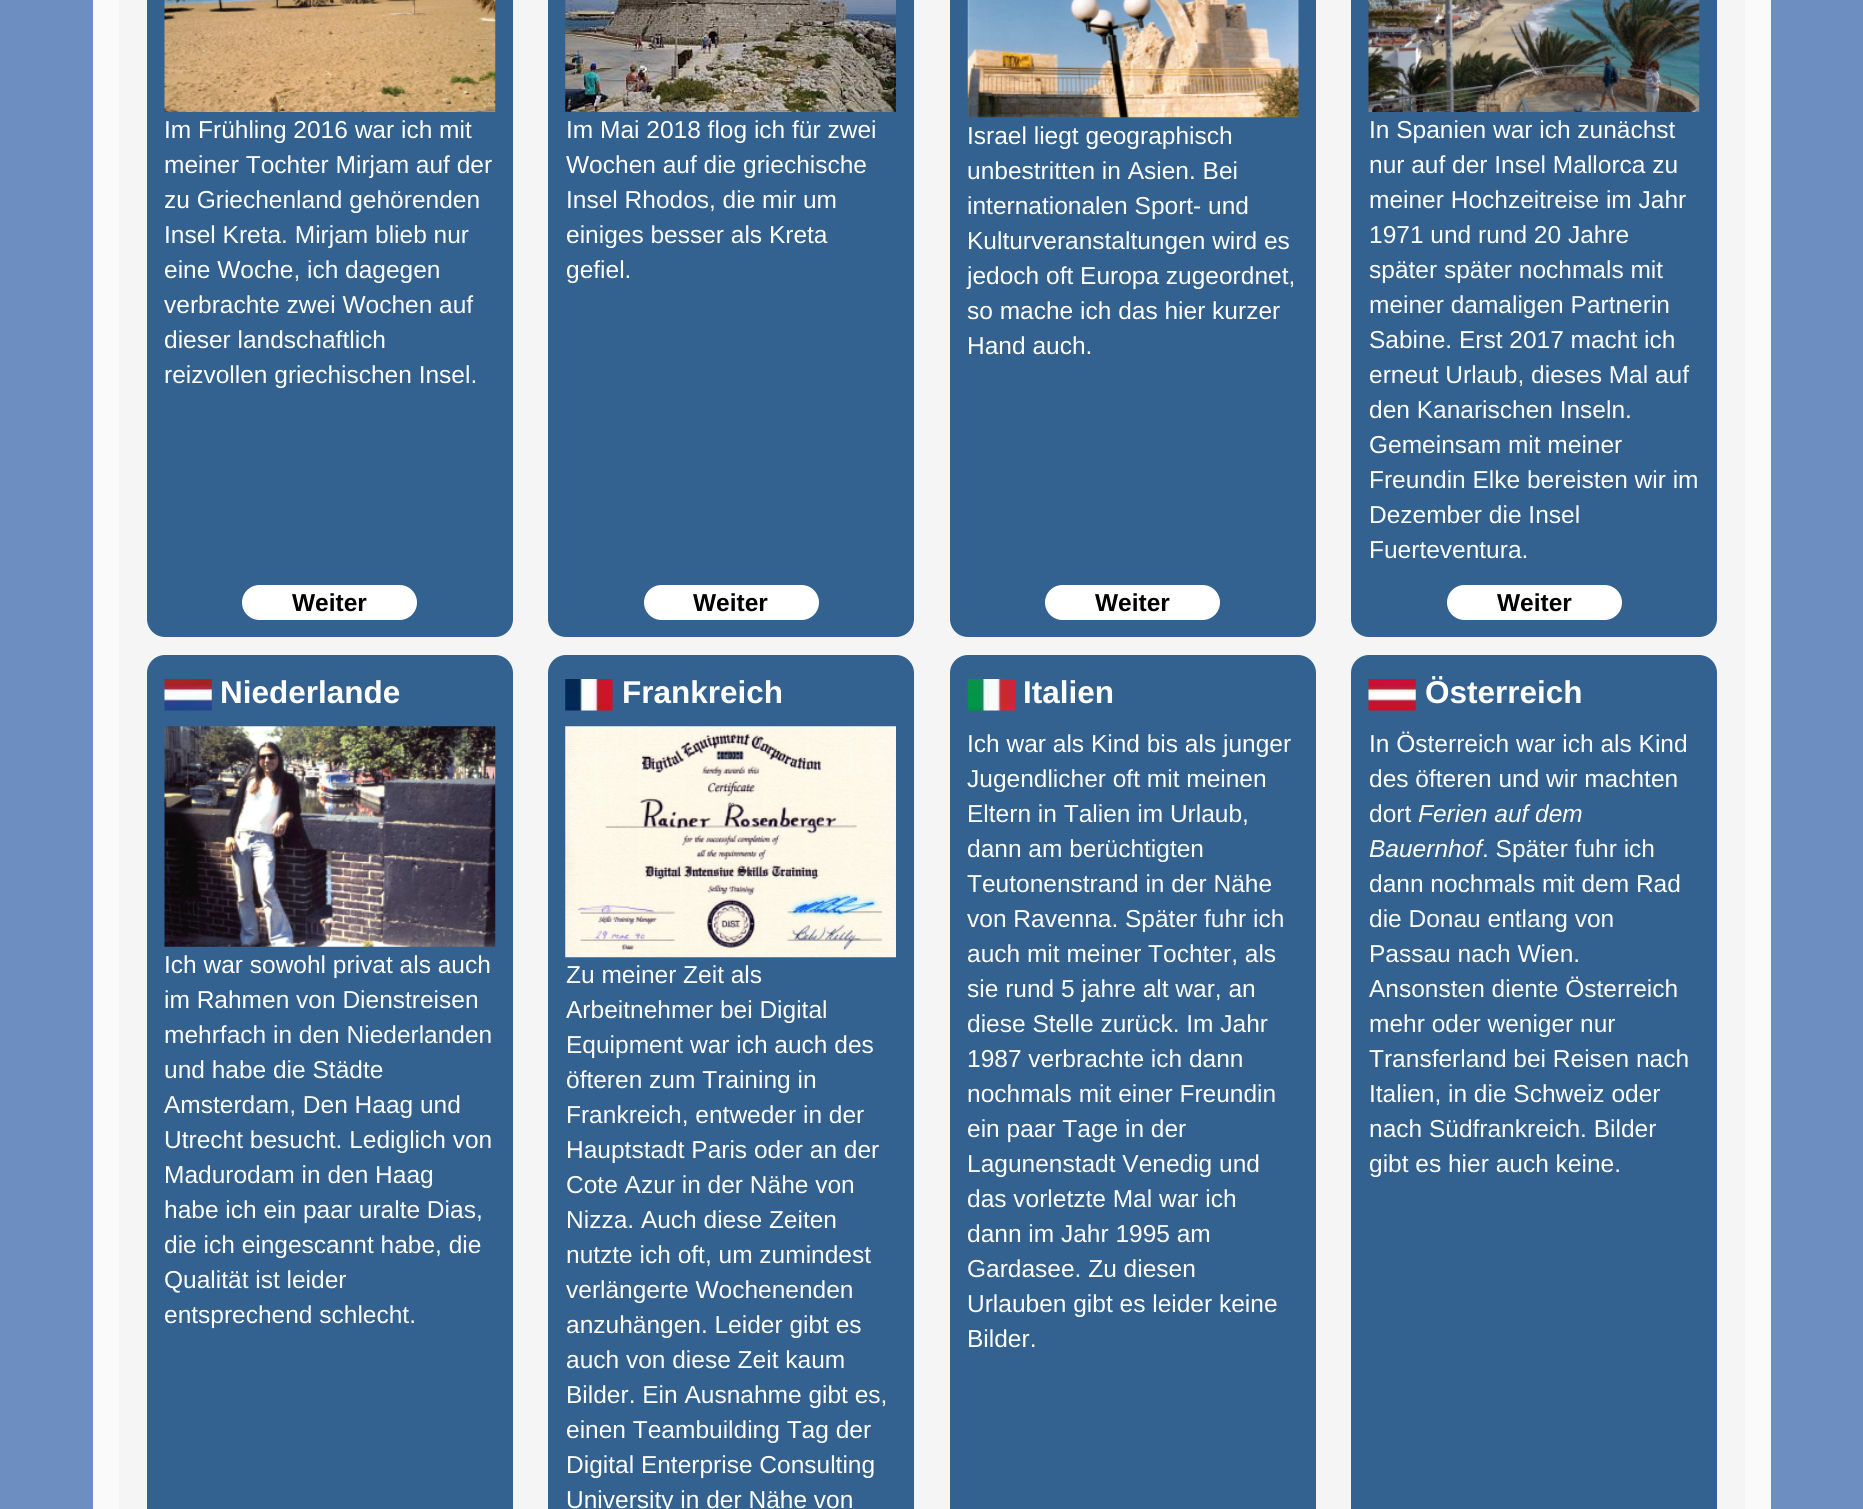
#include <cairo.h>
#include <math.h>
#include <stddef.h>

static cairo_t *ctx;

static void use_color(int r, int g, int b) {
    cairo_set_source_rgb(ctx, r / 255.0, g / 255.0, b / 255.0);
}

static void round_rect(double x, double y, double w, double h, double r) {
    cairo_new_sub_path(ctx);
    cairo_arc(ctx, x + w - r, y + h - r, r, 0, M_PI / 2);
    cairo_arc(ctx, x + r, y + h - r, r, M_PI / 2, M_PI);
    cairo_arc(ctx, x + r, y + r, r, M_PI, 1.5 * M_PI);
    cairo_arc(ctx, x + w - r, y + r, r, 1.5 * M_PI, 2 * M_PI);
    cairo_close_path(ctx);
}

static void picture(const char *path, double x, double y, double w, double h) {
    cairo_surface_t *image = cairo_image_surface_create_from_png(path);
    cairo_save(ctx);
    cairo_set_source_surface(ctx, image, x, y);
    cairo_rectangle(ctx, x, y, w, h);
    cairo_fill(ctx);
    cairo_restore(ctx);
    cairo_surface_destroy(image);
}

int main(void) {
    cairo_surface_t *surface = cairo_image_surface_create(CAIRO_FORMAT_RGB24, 1863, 1509);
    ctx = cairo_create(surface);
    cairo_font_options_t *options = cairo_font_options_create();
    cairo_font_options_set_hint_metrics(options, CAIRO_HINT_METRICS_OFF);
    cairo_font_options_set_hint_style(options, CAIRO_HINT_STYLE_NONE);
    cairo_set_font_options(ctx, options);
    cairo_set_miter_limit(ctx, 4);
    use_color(108, 142, 192);
    cairo_paint(ctx);
    use_color(250, 250, 250);
    cairo_rectangle(ctx, 93, 0, 1678, 1509);
    cairo_fill(ctx);
    use_color(245, 245, 245);
    cairo_rectangle(ctx, 119, 0, 1626, 1509);
    cairo_fill(ctx);
    use_color(51, 98, 144);
    round_rect(147, -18, 366, 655, 18);
    cairo_fill(ctx);
    picture("img1.png", 164, 0, 332, 112);
    cairo_select_font_face(ctx, "Liberation Sans", CAIRO_FONT_SLANT_NORMAL, CAIRO_FONT_WEIGHT_NORMAL);
    cairo_set_font_size(ctx, 24.5);
    use_color(255, 255, 255);
    cairo_move_to(ctx, 164, 138);
    cairo_show_text(ctx, "Im Frühling 2016 war ich mit");
    cairo_move_to(ctx, 164, 173);
    cairo_show_text(ctx, "meiner Tochter Mirjam auf der");
    cairo_move_to(ctx, 164, 208);
    cairo_show_text(ctx, "zu Griechenland gehörenden");
    cairo_move_to(ctx, 164, 243);
    cairo_show_text(ctx, "Insel Kreta. Mirjam blieb nur");
    cairo_move_to(ctx, 164, 278);
    cairo_show_text(ctx, "eine Woche, ich dagegen");
    cairo_move_to(ctx, 164, 313);
    cairo_show_text(ctx, "verbrachte zwei Wochen auf");
    cairo_move_to(ctx, 164, 348);
    cairo_show_text(ctx, "dieser landschaftlich");
    cairo_move_to(ctx, 164, 383);
    cairo_show_text(ctx, "reizvollen griechischen Insel.");
    round_rect(242, 585, 175, 35, 17.5);
    cairo_fill(ctx);
    cairo_select_font_face(ctx, "Liberation Sans", CAIRO_FONT_SLANT_NORMAL, CAIRO_FONT_WEIGHT_BOLD);
    use_color(0, 0, 0);
    cairo_move_to(ctx, 292, 611);
    cairo_show_text(ctx, "Weiter");
    use_color(51, 98, 144);
    round_rect(548, -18, 366, 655, 18);
    cairo_fill(ctx);
    picture("img2.png", 565, 0, 331, 112);
    cairo_select_font_face(ctx, "Liberation Sans", CAIRO_FONT_SLANT_NORMAL, CAIRO_FONT_WEIGHT_NORMAL);
    use_color(255, 255, 255);
    cairo_move_to(ctx, 566, 138);
    cairo_show_text(ctx, "Im Mai 2018 flog ich für zwei");
    cairo_move_to(ctx, 566, 173);
    cairo_show_text(ctx, "Wochen auf die griechische");
    cairo_move_to(ctx, 566, 208);
    cairo_show_text(ctx, "Insel Rhodos, die mir um");
    cairo_move_to(ctx, 566, 243);
    cairo_show_text(ctx, "einiges besser als Kreta");
    cairo_move_to(ctx, 566, 278);
    cairo_show_text(ctx, "gefiel.");
    round_rect(644, 585, 175, 35, 17.5);
    cairo_fill(ctx);
    cairo_select_font_face(ctx, "Liberation Sans", CAIRO_FONT_SLANT_NORMAL, CAIRO_FONT_WEIGHT_BOLD);
    use_color(0, 0, 0);
    cairo_move_to(ctx, 693, 611);
    cairo_show_text(ctx, "Weiter");
    use_color(51, 98, 144);
    round_rect(950, -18, 366, 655, 18);
    cairo_fill(ctx);
    picture("img3.png", 967, 0, 332, 118);
    cairo_select_font_face(ctx, "Liberation Sans", CAIRO_FONT_SLANT_NORMAL, CAIRO_FONT_WEIGHT_NORMAL);
    use_color(255, 255, 255);
    cairo_move_to(ctx, 967, 144);
    cairo_show_text(ctx, "Israel liegt geographisch");
    cairo_move_to(ctx, 967, 179);
    cairo_show_text(ctx, "unbestritten in Asien. Bei");
    cairo_move_to(ctx, 967, 214);
    cairo_show_text(ctx, "internationalen Sport- und");
    cairo_move_to(ctx, 967, 249);
    cairo_show_text(ctx, "Kulturveranstaltungen wird es");
    cairo_move_to(ctx, 967, 284);
    cairo_show_text(ctx, "jedoch oft Europa zugeordnet,");
    cairo_move_to(ctx, 967, 319);
    cairo_show_text(ctx, "so mache ich das hier kurzer");
    cairo_move_to(ctx, 967, 354);
    cairo_show_text(ctx, "Hand auch.");
    round_rect(1045, 585, 175, 35, 17.5);
    cairo_fill(ctx);
    cairo_select_font_face(ctx, "Liberation Sans", CAIRO_FONT_SLANT_NORMAL, CAIRO_FONT_WEIGHT_BOLD);
    use_color(0, 0, 0);
    cairo_move_to(ctx, 1095, 611);
    cairo_show_text(ctx, "Weiter");
    use_color(51, 98, 144);
    round_rect(1351, -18, 366, 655, 18);
    cairo_fill(ctx);
    picture("img4.png", 1368, 0, 332, 112);
    cairo_select_font_face(ctx, "Liberation Sans", CAIRO_FONT_SLANT_NORMAL, CAIRO_FONT_WEIGHT_NORMAL);
    use_color(255, 255, 255);
    cairo_move_to(ctx, 1369, 138);
    cairo_show_text(ctx, "In Spanien war ich zunächst");
    cairo_move_to(ctx, 1369, 173);
    cairo_show_text(ctx, "nur auf der Insel Mallorca zu");
    cairo_move_to(ctx, 1369, 208);
    cairo_show_text(ctx, "meiner Hochzeitreise im Jahr");
    cairo_move_to(ctx, 1369, 243);
    cairo_show_text(ctx, "1971 und rund 20 Jahre");
    cairo_move_to(ctx, 1369, 278);
    cairo_show_text(ctx, "später später nochmals mit");
    cairo_move_to(ctx, 1369, 313);
    cairo_show_text(ctx, "meiner damaligen Partnerin");
    cairo_move_to(ctx, 1369, 348);
    cairo_show_text(ctx, "Sabine. Erst 2017 macht ich");
    cairo_move_to(ctx, 1369, 383);
    cairo_show_text(ctx, "erneut Urlaub, dieses Mal auf");
    cairo_move_to(ctx, 1369, 418);
    cairo_show_text(ctx, "den Kanarischen Inseln.");
    cairo_move_to(ctx, 1369, 453);
    cairo_show_text(ctx, "Gemeinsam mit meiner");
    cairo_move_to(ctx, 1369, 488);
    cairo_show_text(ctx, "Freundin Elke bereisten wir im");
    cairo_move_to(ctx, 1369, 523);
    cairo_show_text(ctx, "Dezember die Insel");
    cairo_move_to(ctx, 1369, 558);
    cairo_show_text(ctx, "Fuerteventura.");
    round_rect(1447, 585, 175, 35, 17.5);
    cairo_fill(ctx);
    cairo_select_font_face(ctx, "Liberation Sans", CAIRO_FONT_SLANT_NORMAL, CAIRO_FONT_WEIGHT_BOLD);
    use_color(0, 0, 0);
    cairo_move_to(ctx, 1497, 611);
    cairo_show_text(ctx, "Weiter");
    use_color(51, 98, 144);
    round_rect(147, 655, 366, 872, 18);
    cairo_fill(ctx);
    picture("img5.png", 164, 679, 48, 32);
    cairo_set_font_size(ctx, 31.5);
    use_color(255, 255, 255);
    cairo_move_to(ctx, 220, 703);
    cairo_show_text(ctx, "Niederlande");
    picture("img6.png", 164, 726, 332, 221);
    cairo_select_font_face(ctx, "Liberation Sans", CAIRO_FONT_SLANT_NORMAL, CAIRO_FONT_WEIGHT_NORMAL);
    cairo_set_font_size(ctx, 24.5);
    cairo_move_to(ctx, 164, 973);
    cairo_show_text(ctx, "Ich war sowohl privat als auch");
    cairo_move_to(ctx, 164, 1008);
    cairo_show_text(ctx, "im Rahmen von Dienstreisen");
    cairo_move_to(ctx, 164, 1043);
    cairo_show_text(ctx, "mehrfach in den Niederlanden");
    cairo_move_to(ctx, 164, 1078);
    cairo_show_text(ctx, "und habe die Städte");
    cairo_move_to(ctx, 164, 1113);
    cairo_show_text(ctx, "Amsterdam, Den Haag und");
    cairo_move_to(ctx, 164, 1148);
    cairo_show_text(ctx, "Utrecht besucht. Lediglich von");
    cairo_move_to(ctx, 164, 1183);
    cairo_show_text(ctx, "Madurodam in den Haag");
    cairo_move_to(ctx, 164, 1218);
    cairo_show_text(ctx, "habe ich ein paar uralte Dias,");
    cairo_move_to(ctx, 164, 1253);
    cairo_show_text(ctx, "die ich eingescannt habe, die");
    cairo_move_to(ctx, 164, 1288);
    cairo_show_text(ctx, "Qualität ist leider");
    cairo_move_to(ctx, 164, 1323);
    cairo_show_text(ctx, "entsprechend schlecht.");
    use_color(51, 98, 144);
    round_rect(548, 655, 366, 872, 18);
    cairo_fill(ctx);
    picture("img7.png", 565, 679, 48, 32);
    cairo_select_font_face(ctx, "Liberation Sans", CAIRO_FONT_SLANT_NORMAL, CAIRO_FONT_WEIGHT_BOLD);
    cairo_set_font_size(ctx, 31.5);
    use_color(255, 255, 255);
    cairo_move_to(ctx, 622, 703);
    cairo_show_text(ctx, "Frankreich");
    picture("img8.png", 565, 726, 331, 232);
    cairo_select_font_face(ctx, "Liberation Sans", CAIRO_FONT_SLANT_NORMAL, CAIRO_FONT_WEIGHT_NORMAL);
    cairo_set_font_size(ctx, 24.5);
    cairo_move_to(ctx, 566, 983);
    cairo_show_text(ctx, "Zu meiner Zeit als");
    cairo_move_to(ctx, 566, 1018);
    cairo_show_text(ctx, "Arbeitnehmer bei Digital");
    cairo_move_to(ctx, 566, 1053);
    cairo_show_text(ctx, "Equipment war ich auch des");
    cairo_move_to(ctx, 566, 1088);
    cairo_show_text(ctx, "öfteren zum Training in");
    cairo_move_to(ctx, 566, 1123);
    cairo_show_text(ctx, "Frankreich, entweder in der");
    cairo_move_to(ctx, 566, 1158);
    cairo_show_text(ctx, "Hauptstadt Paris oder an der");
    cairo_move_to(ctx, 566, 1193);
    cairo_show_text(ctx, "Cote Azur in der Nähe von");
    cairo_move_to(ctx, 566, 1228);
    cairo_show_text(ctx, "Nizza. Auch diese Zeiten");
    cairo_move_to(ctx, 566, 1263);
    cairo_show_text(ctx, "nutzte ich oft, um zumindest");
    cairo_move_to(ctx, 566, 1298);
    cairo_show_text(ctx, "verlängerte Wochenenden");
    cairo_move_to(ctx, 566, 1333);
    cairo_show_text(ctx, "anzuhängen. Leider gibt es");
    cairo_move_to(ctx, 566, 1368);
    cairo_show_text(ctx, "auch von diese Zeit kaum");
    cairo_move_to(ctx, 566, 1403);
    cairo_show_text(ctx, "Bilder. Ein Ausnahme gibt es,");
    cairo_move_to(ctx, 566, 1438);
    cairo_show_text(ctx, "einen Teambuilding Tag der");
    cairo_move_to(ctx, 566, 1473);
    cairo_show_text(ctx, "Digital Enterprise Consulting");
    cairo_move_to(ctx, 566, 1508);
    cairo_show_text(ctx, "University in der Nähe von");
    use_color(51, 98, 144);
    round_rect(950, 655, 366, 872, 18);
    cairo_fill(ctx);
    picture("img9.png", 967, 679, 48, 32);
    cairo_select_font_face(ctx, "Liberation Sans", CAIRO_FONT_SLANT_NORMAL, CAIRO_FONT_WEIGHT_BOLD);
    cairo_set_font_size(ctx, 31.5);
    use_color(255, 255, 255);
    cairo_move_to(ctx, 1023, 703);
    cairo_show_text(ctx, "Italien");
    cairo_select_font_face(ctx, "Liberation Sans", CAIRO_FONT_SLANT_NORMAL, CAIRO_FONT_WEIGHT_NORMAL);
    cairo_set_font_size(ctx, 24.5);
    cairo_move_to(ctx, 967, 752);
    cairo_show_text(ctx, "Ich war als Kind bis als junger");
    cairo_move_to(ctx, 967, 787);
    cairo_show_text(ctx, "Jugendlicher oft mit meinen");
    cairo_move_to(ctx, 967, 822);
    cairo_show_text(ctx, "Eltern in Talien im Urlaub,");
    cairo_move_to(ctx, 967, 857);
    cairo_show_text(ctx, "dann am berüchtigten");
    cairo_move_to(ctx, 967, 892);
    cairo_show_text(ctx, "Teutonenstrand in der Nähe");
    cairo_move_to(ctx, 967, 927);
    cairo_show_text(ctx, "von Ravenna. Später fuhr ich");
    cairo_move_to(ctx, 967, 962);
    cairo_show_text(ctx, "auch mit meiner Tochter, als");
    cairo_move_to(ctx, 967, 997);
    cairo_show_text(ctx, "sie rund 5 jahre alt war, an");
    cairo_move_to(ctx, 967, 1032);
    cairo_show_text(ctx, "diese Stelle zurück. Im Jahr");
    cairo_move_to(ctx, 967, 1067);
    cairo_show_text(ctx, "1987 verbrachte ich dann");
    cairo_move_to(ctx, 967, 1102);
    cairo_show_text(ctx, "nochmals mit einer Freundin");
    cairo_move_to(ctx, 967, 1137);
    cairo_show_text(ctx, "ein paar Tage in der");
    cairo_move_to(ctx, 967, 1172);
    cairo_show_text(ctx, "Lagunenstadt Venedig und");
    cairo_move_to(ctx, 967, 1207);
    cairo_show_text(ctx, "das vorletzte Mal war ich");
    cairo_move_to(ctx, 967, 1242);
    cairo_show_text(ctx, "dann im Jahr 1995 am");
    cairo_move_to(ctx, 967, 1277);
    cairo_show_text(ctx, "Gardasee. Zu diesen");
    cairo_move_to(ctx, 967, 1312);
    cairo_show_text(ctx, "Urlauben gibt es leider keine");
    cairo_move_to(ctx, 967, 1347);
    cairo_show_text(ctx, "Bilder.");
    use_color(51, 98, 144);
    round_rect(1351, 655, 366, 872, 18);
    cairo_fill(ctx);
    picture("img10.png", 1368, 679, 48, 32);
    cairo_select_font_face(ctx, "Liberation Sans", CAIRO_FONT_SLANT_NORMAL, CAIRO_FONT_WEIGHT_BOLD);
    cairo_set_font_size(ctx, 31.5);
    use_color(255, 255, 255);
    cairo_move_to(ctx, 1425, 703);
    cairo_show_text(ctx, "Österreich");
    cairo_select_font_face(ctx, "Liberation Sans", CAIRO_FONT_SLANT_NORMAL, CAIRO_FONT_WEIGHT_NORMAL);
    cairo_set_font_size(ctx, 24.5);
    cairo_move_to(ctx, 1369, 752);
    cairo_show_text(ctx, "In Österreich war ich als Kind");
    cairo_move_to(ctx, 1369, 787);
    cairo_show_text(ctx, "des öfteren und wir machten");
    cairo_move_to(ctx, 1369, 822);
    cairo_show_text(ctx, "dort");
    cairo_select_font_face(ctx, "Liberation Sans", CAIRO_FONT_SLANT_ITALIC, CAIRO_FONT_WEIGHT_NORMAL);
    cairo_move_to(ctx, 1418, 822);
    cairo_show_text(ctx, "Ferien auf dem");
    cairo_move_to(ctx, 1369, 857);
    cairo_show_text(ctx, "Bauernhof");
    cairo_select_font_face(ctx, "Liberation Sans", CAIRO_FONT_SLANT_NORMAL, CAIRO_FONT_WEIGHT_NORMAL);
    cairo_move_to(ctx, 1482, 857);
    cairo_show_text(ctx, ". Später fuhr ich");
    cairo_move_to(ctx, 1369, 892);
    cairo_show_text(ctx, "dann nochmals mit dem Rad");
    cairo_move_to(ctx, 1369, 927);
    cairo_show_text(ctx, "die Donau entlang von");
    cairo_move_to(ctx, 1369, 962);
    cairo_show_text(ctx, "Passau nach Wien.");
    cairo_move_to(ctx, 1369, 997);
    cairo_show_text(ctx, "Ansonsten diente Österreich");
    cairo_move_to(ctx, 1369, 1032);
    cairo_show_text(ctx, "mehr oder weniger nur");
    cairo_move_to(ctx, 1369, 1067);
    cairo_show_text(ctx, "Transferland bei Reisen nach");
    cairo_move_to(ctx, 1369, 1102);
    cairo_show_text(ctx, "Italien, in die Schweiz oder");
    cairo_move_to(ctx, 1369, 1137);
    cairo_show_text(ctx, "nach Südfrankreich. Bilder");
    cairo_move_to(ctx, 1369, 1172);
    cairo_show_text(ctx, "gibt es hier auch keine.");
    cairo_surface_write_to_png(surface, "result.png");
    cairo_font_options_destroy(options);
    cairo_destroy(ctx);
    cairo_surface_destroy(surface);
    return 0;
}
